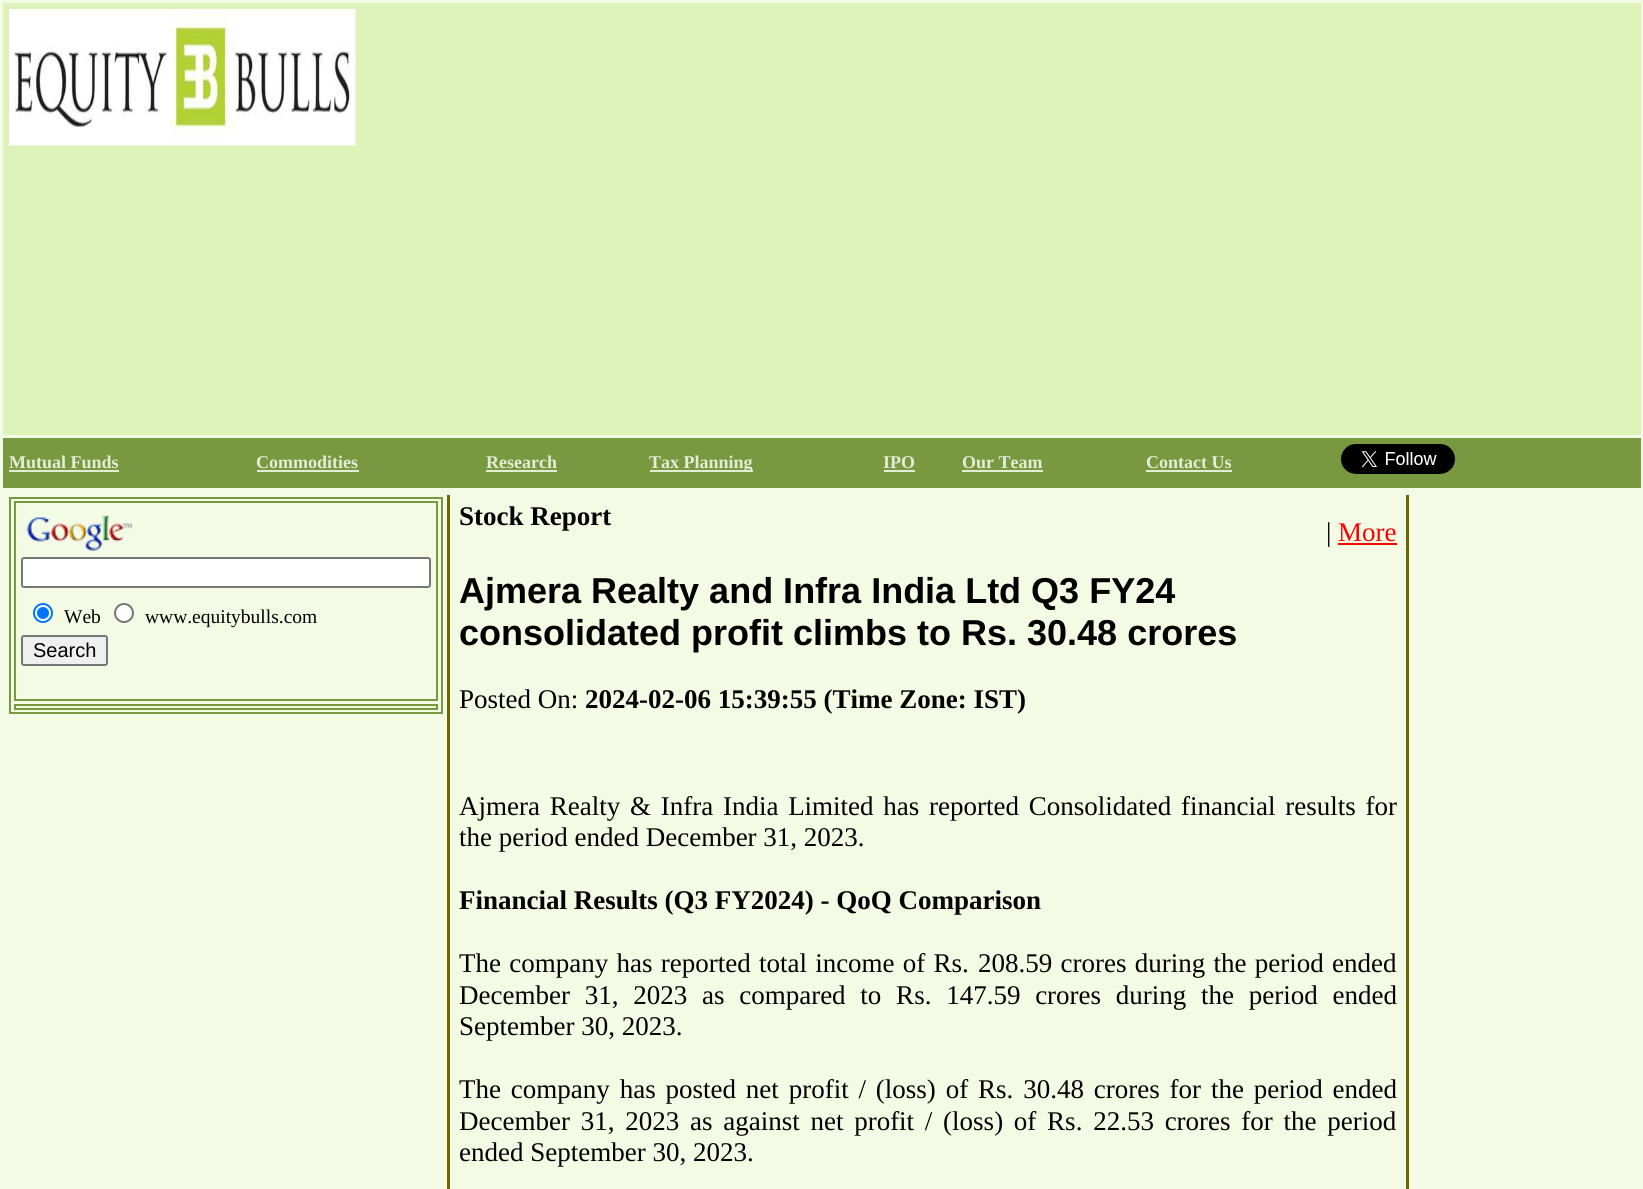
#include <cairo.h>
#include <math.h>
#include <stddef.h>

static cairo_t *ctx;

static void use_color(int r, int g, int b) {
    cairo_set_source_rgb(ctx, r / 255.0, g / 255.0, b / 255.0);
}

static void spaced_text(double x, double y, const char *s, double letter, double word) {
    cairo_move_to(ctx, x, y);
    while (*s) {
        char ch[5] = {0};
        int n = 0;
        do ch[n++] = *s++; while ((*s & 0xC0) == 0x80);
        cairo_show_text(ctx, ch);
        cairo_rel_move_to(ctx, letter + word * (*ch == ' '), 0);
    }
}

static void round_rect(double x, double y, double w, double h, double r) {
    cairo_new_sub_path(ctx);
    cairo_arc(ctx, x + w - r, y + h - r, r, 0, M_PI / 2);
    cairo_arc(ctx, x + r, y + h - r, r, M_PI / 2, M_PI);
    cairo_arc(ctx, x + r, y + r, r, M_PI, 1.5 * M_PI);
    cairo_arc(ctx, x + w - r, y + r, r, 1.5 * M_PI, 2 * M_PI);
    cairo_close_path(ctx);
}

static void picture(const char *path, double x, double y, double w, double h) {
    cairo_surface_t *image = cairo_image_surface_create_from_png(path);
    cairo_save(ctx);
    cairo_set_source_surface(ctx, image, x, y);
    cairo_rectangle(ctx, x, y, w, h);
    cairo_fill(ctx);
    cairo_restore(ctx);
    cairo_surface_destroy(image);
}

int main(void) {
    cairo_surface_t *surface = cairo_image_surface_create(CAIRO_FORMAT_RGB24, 1643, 1189);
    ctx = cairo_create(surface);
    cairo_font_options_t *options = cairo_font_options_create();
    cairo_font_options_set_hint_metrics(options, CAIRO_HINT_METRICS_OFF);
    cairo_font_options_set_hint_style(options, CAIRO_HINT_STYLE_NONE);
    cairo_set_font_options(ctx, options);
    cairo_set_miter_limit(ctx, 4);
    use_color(243, 251, 229);
    cairo_paint(ctx);
    use_color(222, 243, 186);
    cairo_rectangle(ctx, 3, 3, 1638, 432);
    cairo_fill(ctx);
    picture("img1.png", 9, 9, 347, 137);
    use_color(120, 153, 64);
    cairo_rectangle(ctx, 3, 438, 1638, 50);
    cairo_fill(ctx);
    cairo_select_font_face(ctx, "Liberation Serif", CAIRO_FONT_SLANT_NORMAL, CAIRO_FONT_WEIGHT_BOLD);
    cairo_set_font_size(ctx, 18);
    use_color(229, 236, 214);
    cairo_move_to(ctx, 9, 468);
    cairo_show_text(ctx, "Mutual Funds");
    cairo_rectangle(ctx, 9, 470, 110, 2);
    cairo_fill(ctx);
    cairo_move_to(ctx, 256, 468);
    cairo_show_text(ctx, "Commodities");
    cairo_rectangle(ctx, 257, 470, 102, 2);
    cairo_fill(ctx);
    cairo_move_to(ctx, 486, 468);
    cairo_show_text(ctx, "Research");
    cairo_rectangle(ctx, 486, 470, 71, 2);
    cairo_fill(ctx);
    cairo_rectangle(ctx, 650, 470, 103, 2);
    cairo_fill(ctx);
    cairo_move_to(ctx, 649, 468);
    cairo_show_text(ctx, "Tax Planning");
    cairo_move_to(ctx, 883, 468);
    cairo_show_text(ctx, "IPO");
    cairo_rectangle(ctx, 884, 470, 31, 2);
    cairo_fill(ctx);
    cairo_move_to(ctx, 962, 468);
    cairo_show_text(ctx, "Our Team");
    cairo_rectangle(ctx, 962, 470, 81, 2);
    cairo_fill(ctx);
    cairo_move_to(ctx, 1146, 468);
    cairo_show_text(ctx, "Contact Us");
    cairo_rectangle(ctx, 1146, 470, 86, 2);
    cairo_fill(ctx);
    picture("img2.png", 1341, 444, 114, 30);
    cairo_rectangle(ctx, 10, 498, 432, 215);
    use_color(120, 153, 64);
    cairo_stroke(ctx);
    cairo_rectangle(ctx, 15, 502, 422, 198);
    cairo_stroke(ctx);
    picture("img3.png", 26, 515, 107, 36);
    use_color(255, 255, 255);
    round_rect(22, 558, 408, 29, 2);
    cairo_fill_preserve(ctx);
    use_color(118, 118, 118);
    cairo_stroke(ctx);
    use_color(255, 255, 255);
    cairo_arc(ctx, 43, 613, 9, 0, 2 * M_PI);
    cairo_fill_preserve(ctx);
    use_color(0, 117, 255);
    cairo_stroke(ctx);
    cairo_arc(ctx, 43, 613, 6, 0, 2 * M_PI);
    cairo_fill(ctx);
    cairo_select_font_face(ctx, "Liberation Serif", CAIRO_FONT_SLANT_NORMAL, CAIRO_FONT_WEIGHT_NORMAL);
    cairo_set_font_size(ctx, 19.5);
    use_color(0, 0, 0);
    cairo_move_to(ctx, 64, 623);
    cairo_show_text(ctx, "Web");
    use_color(255, 255, 255);
    cairo_new_path(ctx);
    cairo_arc(ctx, 124, 613, 9, 0, 2 * M_PI);
    cairo_fill_preserve(ctx);
    use_color(118, 118, 118);
    cairo_stroke(ctx);
    use_color(0, 0, 0);
    cairo_move_to(ctx, 145, 623);
    cairo_show_text(ctx, "www.equitybulls.com");
    use_color(239, 239, 239);
    round_rect(22, 636, 85, 29, 2);
    cairo_fill_preserve(ctx);
    use_color(118, 118, 118);
    cairo_stroke(ctx);
    cairo_select_font_face(ctx, "Liberation Sans", CAIRO_FONT_SLANT_NORMAL, CAIRO_FONT_WEIGHT_NORMAL);
    cairo_set_font_size(ctx, 20);
    use_color(0, 0, 0);
    cairo_move_to(ctx, 33, 657);
    cairo_show_text(ctx, "Search");
    cairo_rectangle(ctx, 15, 705, 422, 4);
    use_color(120, 153, 64);
    cairo_stroke(ctx);
    use_color(109, 105, 0);
    cairo_rectangle(ctx, 447, 495, 3, 694);
    cairo_fill(ctx);
    cairo_select_font_face(ctx, "Liberation Serif", CAIRO_FONT_SLANT_NORMAL, CAIRO_FONT_WEIGHT_BOLD);
    cairo_set_font_size(ctx, 27);
    use_color(0, 0, 0);
    cairo_move_to(ctx, 459, 525);
    cairo_show_text(ctx, "Stock Report");
    cairo_select_font_face(ctx, "Liberation Serif", CAIRO_FONT_SLANT_NORMAL, CAIRO_FONT_WEIGHT_NORMAL);
    cairo_move_to(ctx, 1326, 541);
    cairo_show_text(ctx, "|");
    use_color(255, 0, 0);
    cairo_move_to(ctx, 1338, 541);
    cairo_show_text(ctx, "More");
    cairo_rectangle(ctx, 1338, 543, 59, 2);
    cairo_fill(ctx);
    cairo_select_font_face(ctx, "Liberation Sans", CAIRO_FONT_SLANT_NORMAL, CAIRO_FONT_WEIGHT_BOLD);
    cairo_set_font_size(ctx, 36);
    use_color(0, 0, 0);
    cairo_move_to(ctx, 459, 603);
    cairo_show_text(ctx, "Ajmera Realty and Infra India Ltd Q3 FY24");
    cairo_move_to(ctx, 459, 645);
    cairo_show_text(ctx, "consolidated profit climbs to Rs. 30.48 crores");
    cairo_select_font_face(ctx, "Liberation Serif", CAIRO_FONT_SLANT_NORMAL, CAIRO_FONT_WEIGHT_NORMAL);
    cairo_set_font_size(ctx, 27);
    cairo_move_to(ctx, 459, 708);
    cairo_show_text(ctx, "Posted On:");
    cairo_select_font_face(ctx, "Liberation Serif", CAIRO_FONT_SLANT_NORMAL, CAIRO_FONT_WEIGHT_BOLD);
    cairo_move_to(ctx, 585, 708);
    cairo_show_text(ctx, "2024-02-06 15:39:55 (Time Zone: IST)");
    cairo_select_font_face(ctx, "Liberation Serif", CAIRO_FONT_SLANT_NORMAL, CAIRO_FONT_WEIGHT_NORMAL);
    spaced_text(459, 815, "Ajmera Realty & Infra India Limited has reported Consolidated financial results for", 0, 3);
    cairo_move_to(ctx, 459, 846);
    cairo_show_text(ctx, "the period ended December 31, 2023.");
    cairo_select_font_face(ctx, "Liberation Serif", CAIRO_FONT_SLANT_NORMAL, CAIRO_FONT_WEIGHT_BOLD);
    cairo_move_to(ctx, 459, 909);
    cairo_show_text(ctx, "Financial Results (Q3 FY2024) - QoQ Comparison");
    cairo_select_font_face(ctx, "Liberation Serif", CAIRO_FONT_SLANT_NORMAL, CAIRO_FONT_WEIGHT_NORMAL);
    spaced_text(459, 972, "The company has reported total income of Rs.", 0, 1.5);
    spaced_text(978, 972, "208.59 crores during the period ended", 0, 1.5);
    spaced_text(459, 1004, "December 31, 2023 as compared to Rs. 147.59 crores during the period ended", 0, 8);
    cairo_move_to(ctx, 459, 1035);
    cairo_show_text(ctx, "September 30, 2023.");
    spaced_text(459, 1098, "The company has posted net profit / (loss) of Rs. 30.48 crores for the period ended", 0, 3.1);
    spaced_text(459, 1130, "December 31, 2023 as against net profit / (loss) of Rs. 22.53 crores for the period", 0, 4);
    cairo_move_to(ctx, 459, 1161);
    cairo_show_text(ctx, "ended September 30, 2023.");
    use_color(109, 105, 0);
    cairo_rectangle(ctx, 1406, 495, 3, 694);
    cairo_fill(ctx);
    cairo_surface_write_to_png(surface, "result.png");
    cairo_font_options_destroy(options);
    cairo_destroy(ctx);
    cairo_surface_destroy(surface);
    return 0;
}
